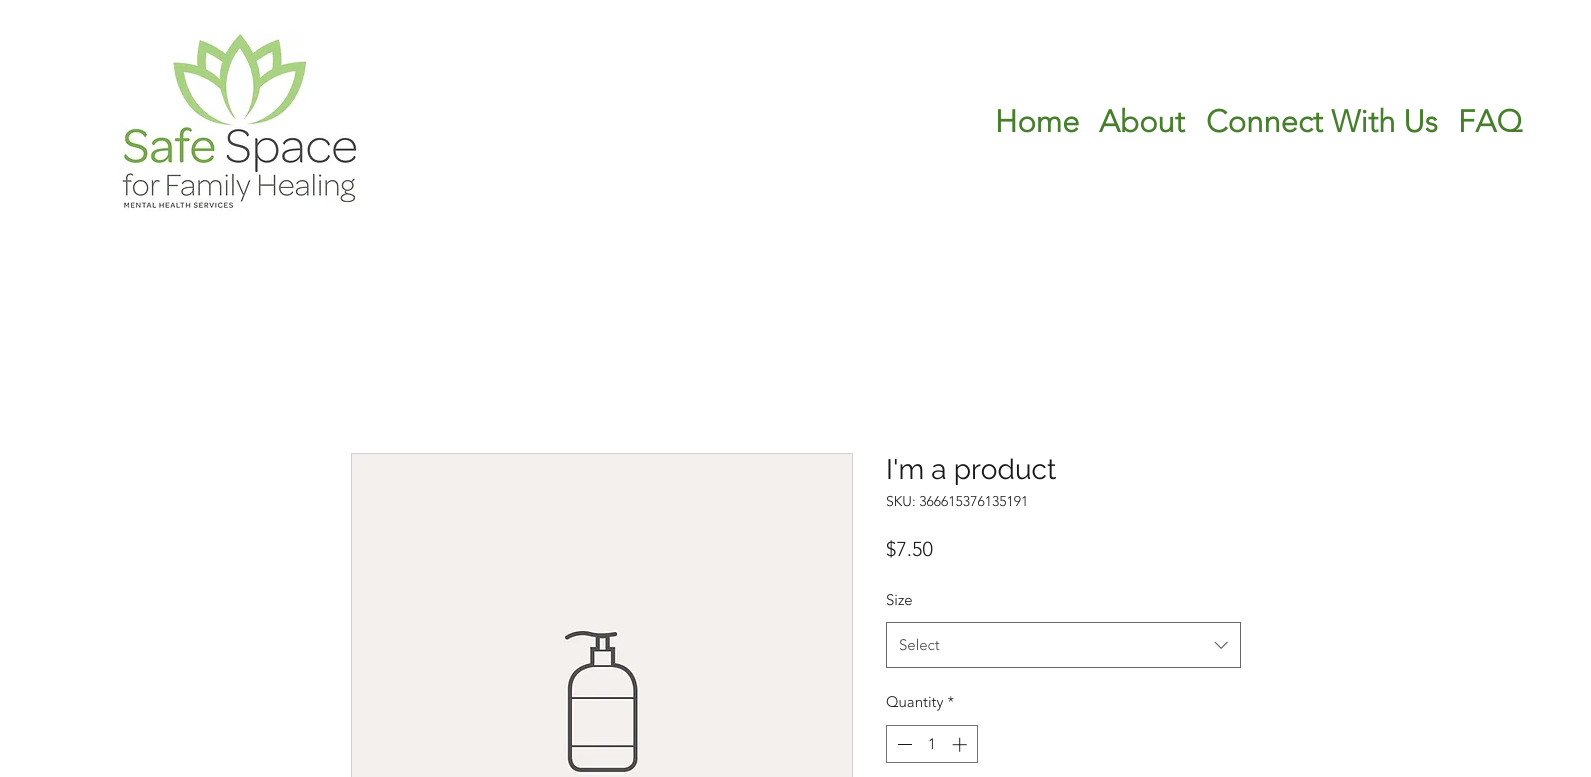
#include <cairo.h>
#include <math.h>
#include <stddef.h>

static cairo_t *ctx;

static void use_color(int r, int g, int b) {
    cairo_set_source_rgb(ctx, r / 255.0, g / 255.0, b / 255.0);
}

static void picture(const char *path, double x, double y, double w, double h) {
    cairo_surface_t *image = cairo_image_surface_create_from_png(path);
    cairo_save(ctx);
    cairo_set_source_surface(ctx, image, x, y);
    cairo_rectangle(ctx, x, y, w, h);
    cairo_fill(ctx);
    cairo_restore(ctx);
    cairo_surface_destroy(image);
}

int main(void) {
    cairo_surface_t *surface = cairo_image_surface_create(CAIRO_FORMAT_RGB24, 1591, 777);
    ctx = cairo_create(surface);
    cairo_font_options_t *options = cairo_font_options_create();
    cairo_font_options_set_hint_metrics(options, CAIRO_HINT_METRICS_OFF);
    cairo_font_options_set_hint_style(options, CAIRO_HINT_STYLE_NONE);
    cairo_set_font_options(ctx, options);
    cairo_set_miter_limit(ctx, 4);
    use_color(255, 255, 255);
    cairo_paint(ctx);
    picture("img1.png", 119, 31, 240, 180);
    cairo_select_font_face(ctx, "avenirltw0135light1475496", CAIRO_FONT_SLANT_NORMAL, CAIRO_FONT_WEIGHT_BOLD);
    cairo_set_font_size(ctx, 31);
    use_color(70, 126, 45);
    cairo_move_to(ctx, 995, 132);
    cairo_show_text(ctx, "Home");
    cairo_move_to(ctx, 1099, 132);
    cairo_show_text(ctx, "About");
    cairo_move_to(ctx, 1206, 132);
    cairo_show_text(ctx, "Connect With Us");
    cairo_move_to(ctx, 1458, 132);
    cairo_show_text(ctx, "FAQ");
    cairo_rectangle(ctx, 351.5, 453.5, 501, 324);
    use_color(209, 209, 209);
    cairo_set_line_width(ctx, 1);
    cairo_stroke(ctx);
    picture("img2.png", 352, 454, 500, 323);
    cairo_select_font_face(ctx, "Raleway", CAIRO_FONT_SLANT_NORMAL, CAIRO_FONT_WEIGHT_NORMAL);
    cairo_set_font_size(ctx, 28);
    use_color(24, 24, 24);
    cairo_move_to(ctx, 886, 479);
    cairo_show_text(ctx, "I'm a product");
    cairo_select_font_face(ctx, "avenirltw0135light1475496 Light", CAIRO_FONT_SLANT_NORMAL, CAIRO_FONT_WEIGHT_NORMAL);
    cairo_set_font_size(ctx, 14);
    cairo_move_to(ctx, 886, 506);
    cairo_show_text(ctx, "SKU: 366615376135191");
    cairo_set_font_size(ctx, 20);
    cairo_move_to(ctx, 886, 556);
    cairo_show_text(ctx, "$7.50");
    cairo_set_font_size(ctx, 15);
    cairo_move_to(ctx, 886, 605);
    cairo_show_text(ctx, "Size");
    cairo_rectangle(ctx, 886.5, 622.5, 354, 45);
    use_color(102, 102, 102);
    cairo_stroke(ctx);
    use_color(68, 68, 68);
    cairo_move_to(ctx, 899, 650);
    cairo_show_text(ctx, "Select");
    picture("img3.png", 1214, 641, 14, 8);
    use_color(24, 24, 24);
    cairo_move_to(ctx, 886, 707);
    cairo_show_text(ctx, "Quantity *");
    cairo_rectangle(ctx, 886.5, 725.5, 91, 37);
    use_color(116, 116, 116);
    cairo_stroke(ctx);
    use_color(24, 24, 24);
    cairo_rectangle(ctx, 898, 744, 14, 1);
    cairo_fill(ctx);
    cairo_move_to(ctx, 928, 749);
    cairo_show_text(ctx, "1");
    picture("img4.png", 952, 737, 15, 15);
    cairo_surface_write_to_png(surface, "result.png");
    cairo_font_options_destroy(options);
    cairo_destroy(ctx);
    cairo_surface_destroy(surface);
    return 0;
}
